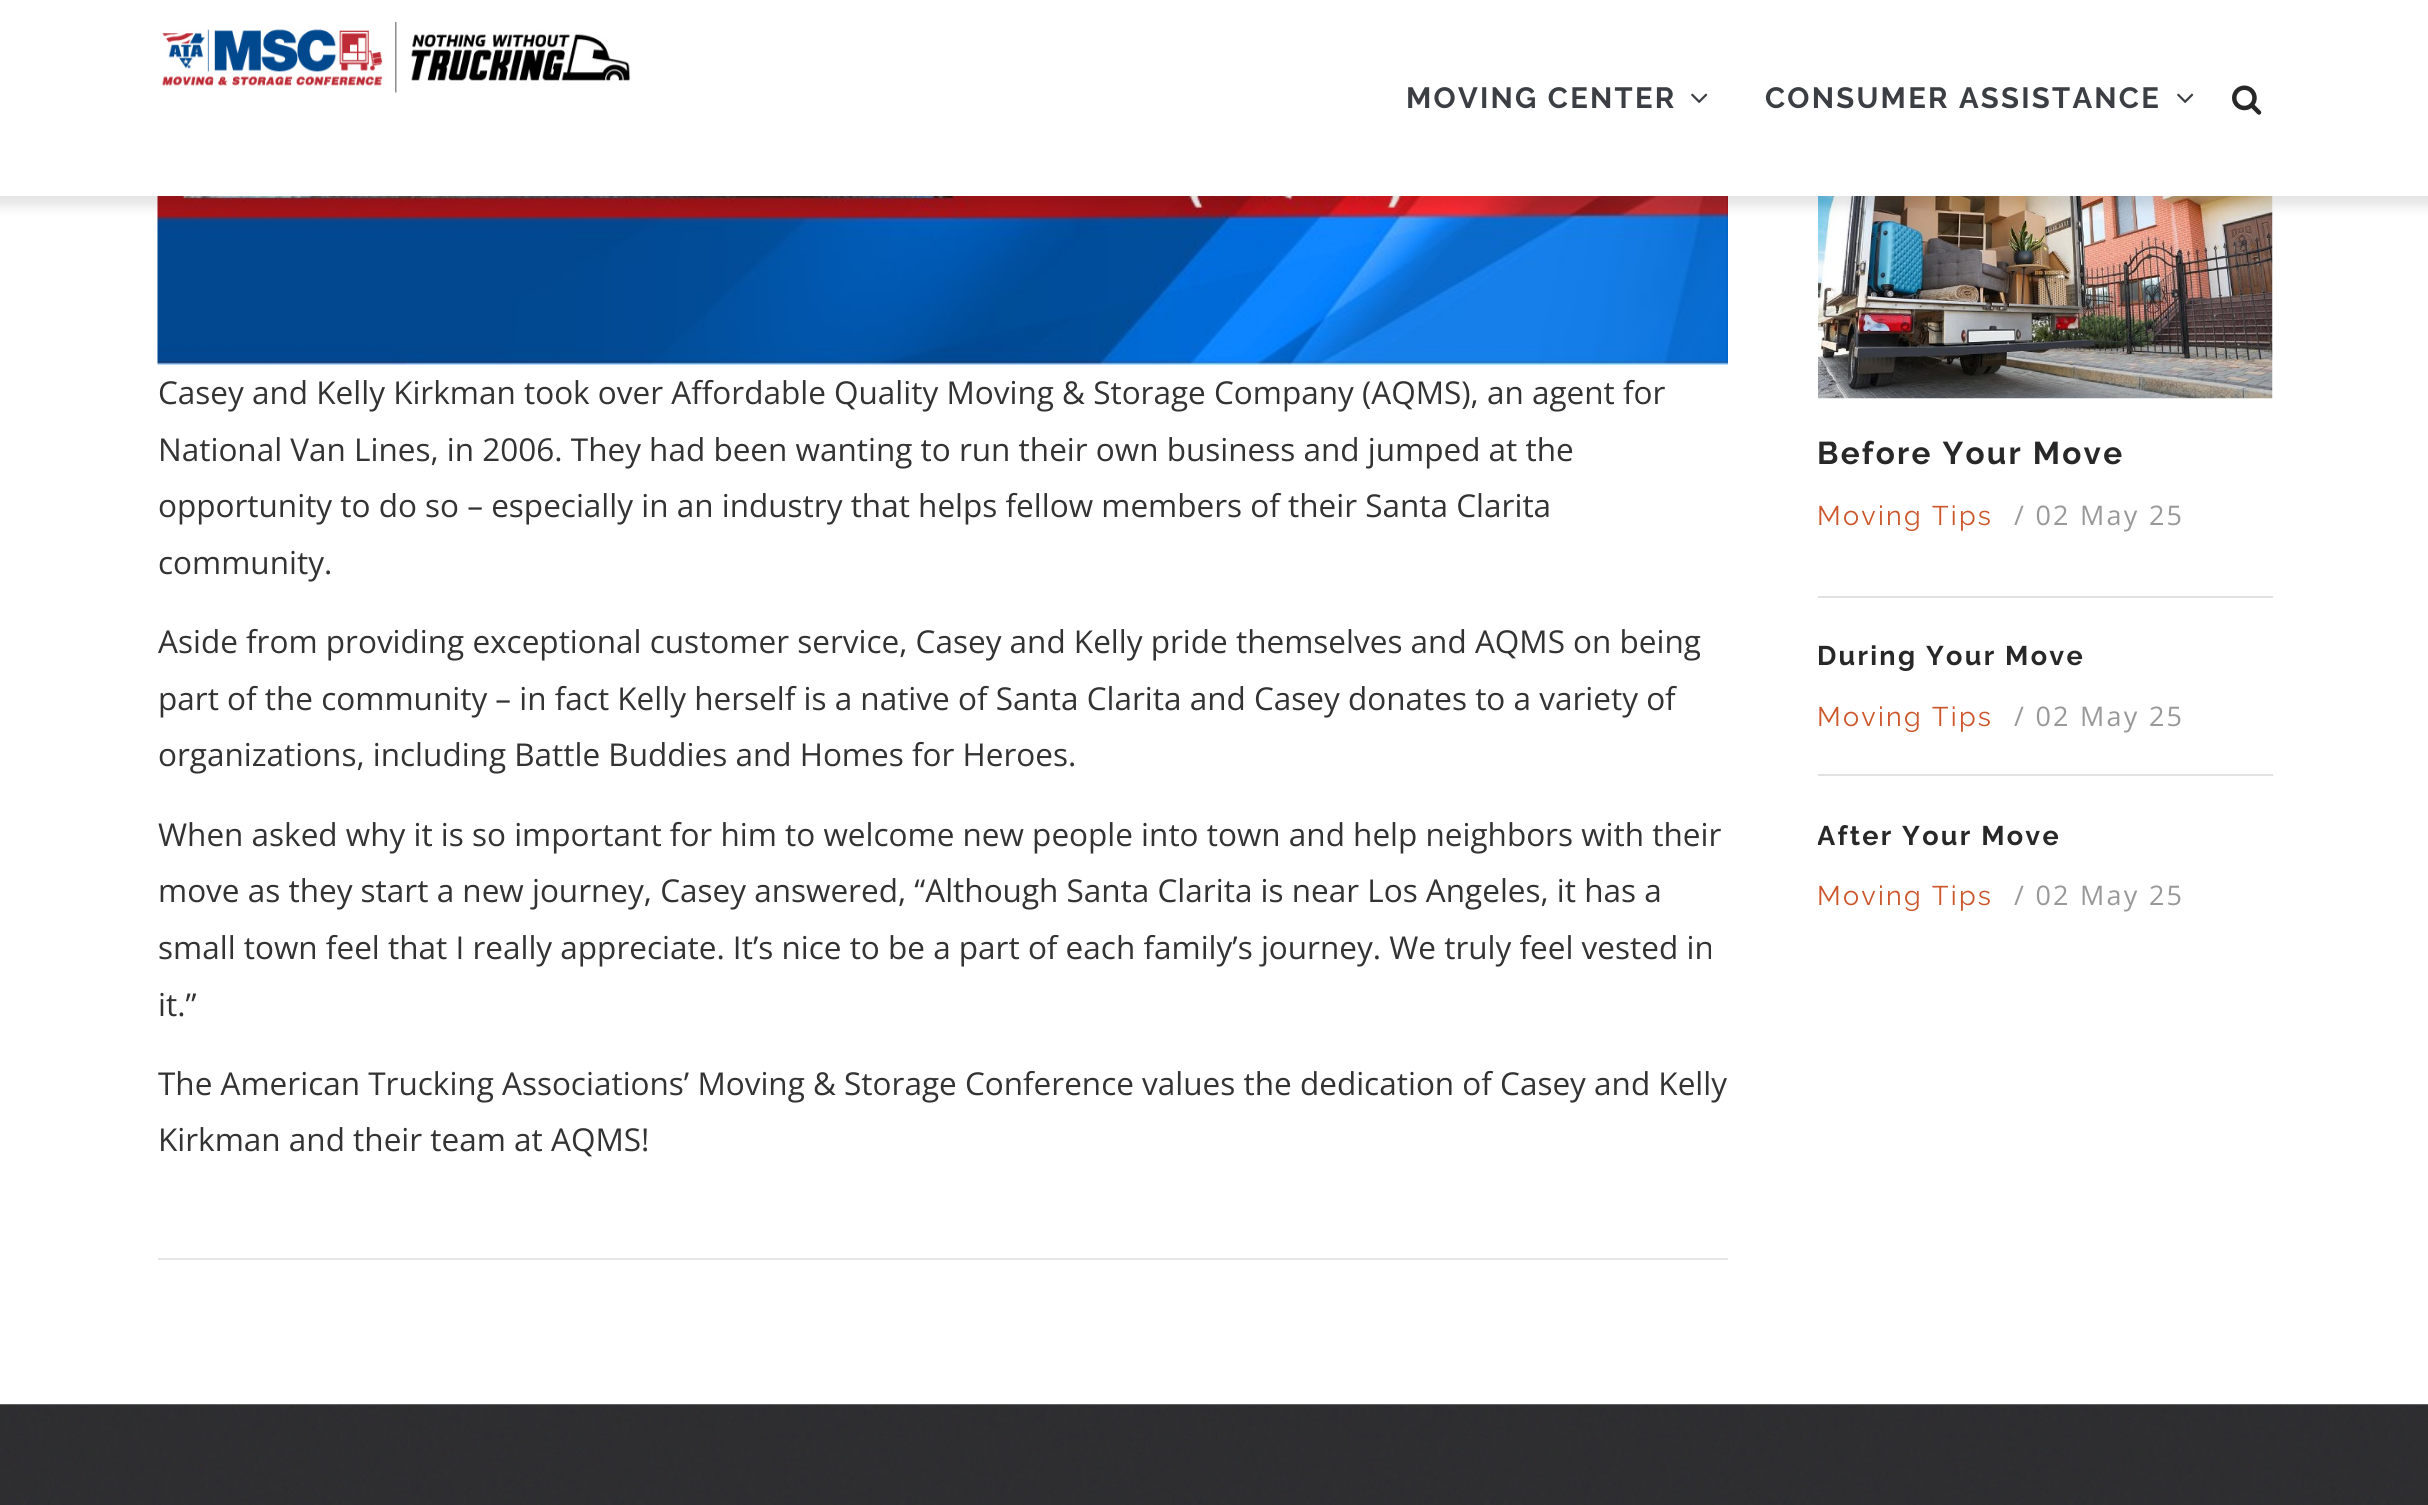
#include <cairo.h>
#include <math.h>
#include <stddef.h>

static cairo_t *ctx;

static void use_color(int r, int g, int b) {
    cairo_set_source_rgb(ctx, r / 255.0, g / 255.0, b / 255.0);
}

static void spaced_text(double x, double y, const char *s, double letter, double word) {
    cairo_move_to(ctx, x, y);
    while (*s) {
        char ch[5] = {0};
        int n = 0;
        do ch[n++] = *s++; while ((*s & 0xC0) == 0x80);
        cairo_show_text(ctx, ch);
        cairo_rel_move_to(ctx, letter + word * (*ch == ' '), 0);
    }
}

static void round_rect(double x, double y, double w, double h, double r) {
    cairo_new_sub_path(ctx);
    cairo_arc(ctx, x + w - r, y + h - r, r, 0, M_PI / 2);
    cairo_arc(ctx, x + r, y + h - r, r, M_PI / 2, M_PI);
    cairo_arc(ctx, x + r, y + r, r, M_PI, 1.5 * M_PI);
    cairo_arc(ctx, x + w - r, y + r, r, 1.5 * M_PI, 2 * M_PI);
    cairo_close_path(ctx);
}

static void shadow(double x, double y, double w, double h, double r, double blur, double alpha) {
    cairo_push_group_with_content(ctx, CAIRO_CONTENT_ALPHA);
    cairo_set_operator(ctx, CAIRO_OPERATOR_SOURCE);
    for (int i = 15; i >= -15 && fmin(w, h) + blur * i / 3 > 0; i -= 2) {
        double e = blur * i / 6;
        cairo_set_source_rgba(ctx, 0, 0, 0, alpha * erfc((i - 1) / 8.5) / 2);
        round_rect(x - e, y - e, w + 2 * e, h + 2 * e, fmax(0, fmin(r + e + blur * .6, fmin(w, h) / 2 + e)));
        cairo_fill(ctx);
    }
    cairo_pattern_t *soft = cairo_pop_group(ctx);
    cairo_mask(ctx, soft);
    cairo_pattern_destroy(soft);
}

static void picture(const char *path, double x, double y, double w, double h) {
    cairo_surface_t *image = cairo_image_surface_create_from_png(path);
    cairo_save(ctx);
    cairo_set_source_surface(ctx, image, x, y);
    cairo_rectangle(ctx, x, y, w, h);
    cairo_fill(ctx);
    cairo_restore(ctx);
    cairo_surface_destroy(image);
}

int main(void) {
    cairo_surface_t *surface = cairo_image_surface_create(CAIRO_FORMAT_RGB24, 2428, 1505);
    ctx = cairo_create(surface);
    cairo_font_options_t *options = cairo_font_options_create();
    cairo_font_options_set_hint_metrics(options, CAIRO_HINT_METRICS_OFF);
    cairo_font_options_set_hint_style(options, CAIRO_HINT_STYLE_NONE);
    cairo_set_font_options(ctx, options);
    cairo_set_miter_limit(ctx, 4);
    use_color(255, 255, 255);
    cairo_paint(ctx);
    picture("img4.png", 157, 196, 1571, 169);
    picture("img5.png", 1818, 196, 455, 203);
    use_color(0, 0, 0);
    shadow(-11, -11, 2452, 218, 0, 5.5, 0.1);
    use_color(255, 255, 255);
    cairo_rectangle(ctx, 0, 0, 2428, 196);
    cairo_fill(ctx);
    picture("img1.png", 162, 22, 469, 71);
    cairo_select_font_face(ctx, "Raleway", CAIRO_FONT_SLANT_NORMAL, CAIRO_FONT_WEIGHT_BOLD);
    cairo_set_font_size(ctx, 29.25);
    use_color(59, 62, 67);
    spaced_text(1406, 108, "MOVING CENTER", 2.25, 0);
    picture("img2.png", 1691, 93, 17, 10);
    spaced_text(1765, 108, "CONSUMER ASSISTANCE", 2.25, 0);
    picture("img2.png", 2177, 93, 17, 10);
    picture("img3.png", 2232, 85, 30, 30);
    cairo_select_font_face(ctx, "Open Sans", CAIRO_FONT_SLANT_NORMAL, CAIRO_FONT_WEIGHT_NORMAL);
    cairo_set_font_size(ctx, 31.5);
    use_color(51, 51, 51);
    cairo_move_to(ctx, 158, 404);
    cairo_show_text(ctx, "Casey and Kelly Kirkman took over Affordable Quality Moving & Storage Company (AQMS), an agent for");
    cairo_move_to(ctx, 158, 461);
    cairo_show_text(ctx, "National Van Lines, in 2006. They had been wanting to run their own business and jumped at the");
    cairo_move_to(ctx, 158, 517);
    cairo_show_text(ctx, "opportunity to do so – especially in an industry that helps fellow members of their Santa Clarita");
    cairo_move_to(ctx, 158, 574);
    cairo_show_text(ctx, "community.");
    cairo_move_to(ctx, 158, 653);
    cairo_show_text(ctx, "Aside from providing exceptional customer service, Casey and Kelly pride themselves and AQMS on being");
    cairo_move_to(ctx, 158, 710);
    cairo_show_text(ctx, "part of the community – in fact Kelly herself is a native of Santa Clarita and Casey donates to a variety of");
    cairo_move_to(ctx, 158, 766);
    cairo_show_text(ctx, "organizations, including Battle Buddies and Homes for Heroes.");
    cairo_move_to(ctx, 158, 846);
    cairo_show_text(ctx, "When asked why it is so important for him to welcome new people into town and help neighbors with their");
    cairo_move_to(ctx, 158, 902);
    cairo_show_text(ctx, "move as they start a new journey, Casey answered, “Although Santa Clarita is near Los Angeles, it has a");
    cairo_move_to(ctx, 158, 959);
    cairo_show_text(ctx, "small town feel that I really appreciate. It’s nice to be a part of each family’s journey. We truly feel vested in");
    cairo_move_to(ctx, 158, 1016);
    cairo_show_text(ctx, "it.”");
    cairo_move_to(ctx, 158, 1095);
    cairo_show_text(ctx, "The American Trucking Associations’ Moving & Storage Conference values the dedication of Casey and Kelly");
    cairo_move_to(ctx, 158, 1151);
    cairo_show_text(ctx, "Kirkman and their team at AQMS!");
    use_color(230, 230, 230);
    cairo_rectangle(ctx, 158, 1258, 1570, 2);
    cairo_fill(ctx);
    use_color(225, 225, 225);
    cairo_rectangle(ctx, 1818, 596, 455, 2);
    cairo_fill(ctx);
    cairo_select_font_face(ctx, "Raleway", CAIRO_FONT_SLANT_NORMAL, CAIRO_FONT_WEIGHT_BOLD);
    use_color(40, 40, 40);
    spaced_text(1817, 464, "Before Your Move", 2.25, 0);
    cairo_select_font_face(ctx, "Raleway", CAIRO_FONT_SLANT_NORMAL, CAIRO_FONT_WEIGHT_NORMAL);
    cairo_set_font_size(ctx, 27);
    use_color(204, 86, 43);
    spaced_text(1817, 525, "Moving Tips", 2.25, 0);
    cairo_select_font_face(ctx, "Open Sans", CAIRO_FONT_SLANT_NORMAL, CAIRO_FONT_WEIGHT_NORMAL);
    use_color(153, 153, 153);
    spaced_text(2014, 525, "/ 02 May 25", 2.25, 0);
    use_color(225, 225, 225);
    cairo_rectangle(ctx, 1818, 774, 455, 2);
    cairo_fill(ctx);
    cairo_select_font_face(ctx, "Raleway", CAIRO_FONT_SLANT_NORMAL, CAIRO_FONT_WEIGHT_BOLD);
    use_color(40, 40, 40);
    spaced_text(1817, 665, "During Your Move", 2.25, 0);
    cairo_select_font_face(ctx, "Raleway", CAIRO_FONT_SLANT_NORMAL, CAIRO_FONT_WEIGHT_NORMAL);
    use_color(204, 86, 43);
    spaced_text(1817, 726, "Moving Tips", 2.25, 0);
    cairo_select_font_face(ctx, "Open Sans", CAIRO_FONT_SLANT_NORMAL, CAIRO_FONT_WEIGHT_NORMAL);
    use_color(153, 153, 153);
    spaced_text(2014, 726, "/ 02 May 25", 2.25, 0);
    cairo_save(ctx);
    cairo_rectangle(ctx, 1818, 810, 455, 144);
    cairo_clip(ctx);
    cairo_select_font_face(ctx, "Raleway", CAIRO_FONT_SLANT_NORMAL, CAIRO_FONT_WEIGHT_BOLD);
    use_color(40, 40, 40);
    spaced_text(1817, 845, "After Your Move", 2.25, 0);
    cairo_restore(ctx);
    cairo_select_font_face(ctx, "Raleway", CAIRO_FONT_SLANT_NORMAL, CAIRO_FONT_WEIGHT_NORMAL);
    use_color(204, 86, 43);
    spaced_text(1817, 905, "Moving Tips", 2.25, 0);
    cairo_select_font_face(ctx, "Open Sans", CAIRO_FONT_SLANT_NORMAL, CAIRO_FONT_WEIGHT_NORMAL);
    use_color(153, 153, 153);
    spaced_text(2014, 905, "/ 02 May 25", 2.25, 0);
    picture("img6.png", 0, 1404, 2428, 101);
    cairo_surface_write_to_png(surface, "result.png");
    cairo_font_options_destroy(options);
    cairo_destroy(ctx);
    cairo_surface_destroy(surface);
    return 0;
}
